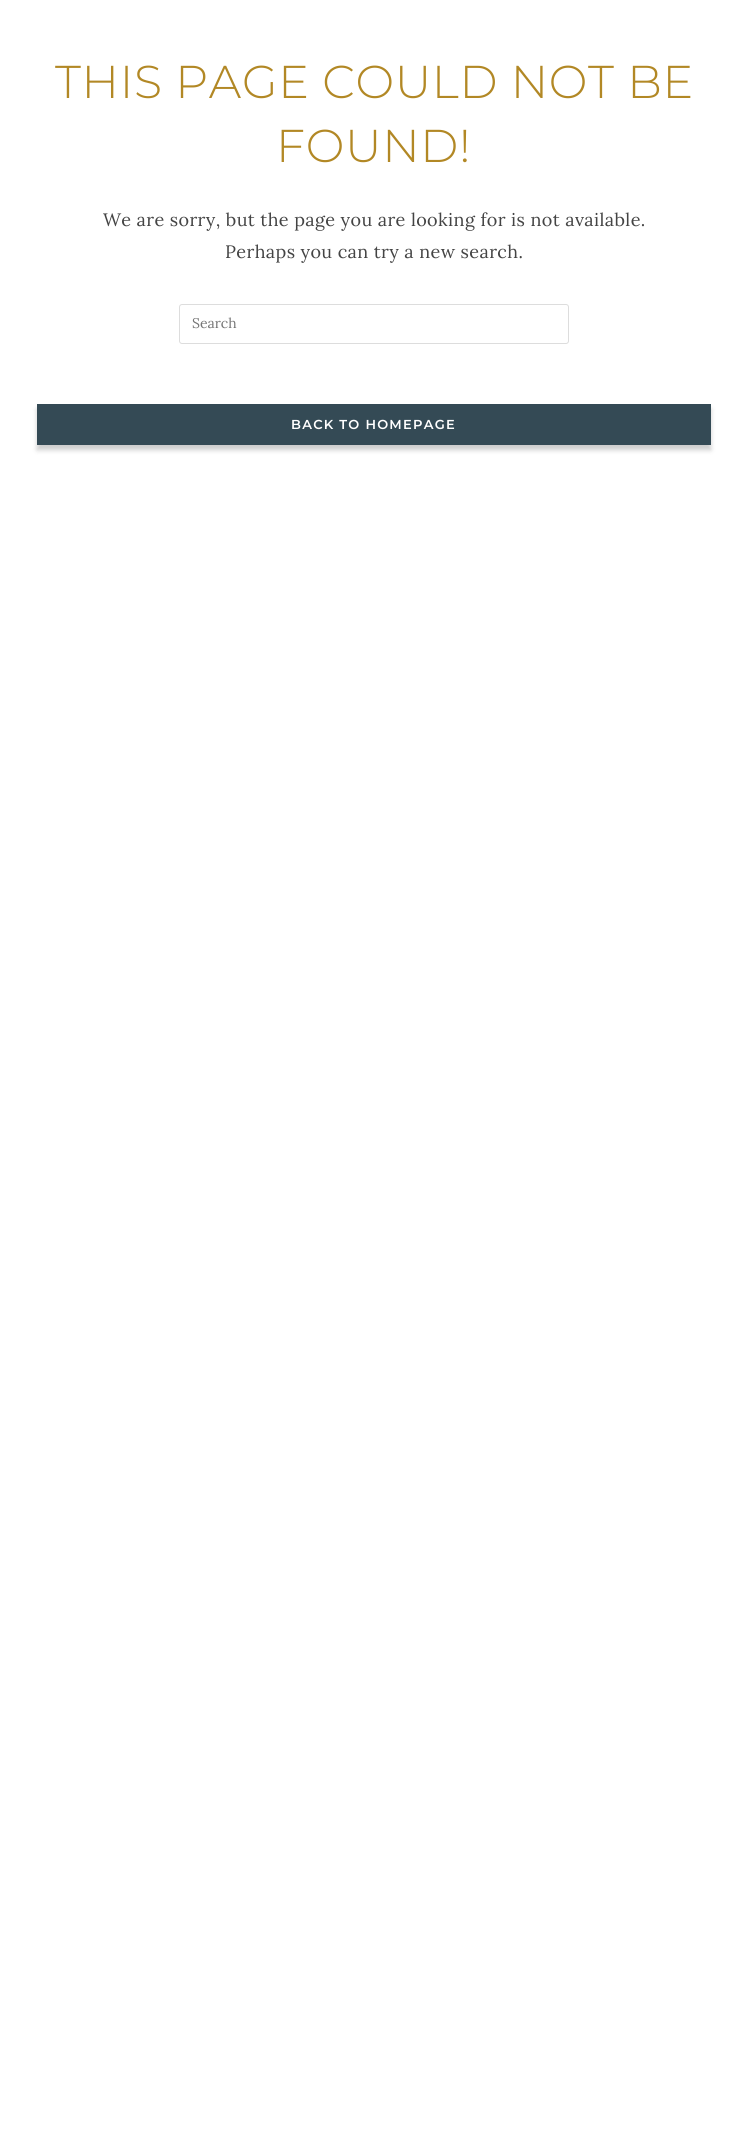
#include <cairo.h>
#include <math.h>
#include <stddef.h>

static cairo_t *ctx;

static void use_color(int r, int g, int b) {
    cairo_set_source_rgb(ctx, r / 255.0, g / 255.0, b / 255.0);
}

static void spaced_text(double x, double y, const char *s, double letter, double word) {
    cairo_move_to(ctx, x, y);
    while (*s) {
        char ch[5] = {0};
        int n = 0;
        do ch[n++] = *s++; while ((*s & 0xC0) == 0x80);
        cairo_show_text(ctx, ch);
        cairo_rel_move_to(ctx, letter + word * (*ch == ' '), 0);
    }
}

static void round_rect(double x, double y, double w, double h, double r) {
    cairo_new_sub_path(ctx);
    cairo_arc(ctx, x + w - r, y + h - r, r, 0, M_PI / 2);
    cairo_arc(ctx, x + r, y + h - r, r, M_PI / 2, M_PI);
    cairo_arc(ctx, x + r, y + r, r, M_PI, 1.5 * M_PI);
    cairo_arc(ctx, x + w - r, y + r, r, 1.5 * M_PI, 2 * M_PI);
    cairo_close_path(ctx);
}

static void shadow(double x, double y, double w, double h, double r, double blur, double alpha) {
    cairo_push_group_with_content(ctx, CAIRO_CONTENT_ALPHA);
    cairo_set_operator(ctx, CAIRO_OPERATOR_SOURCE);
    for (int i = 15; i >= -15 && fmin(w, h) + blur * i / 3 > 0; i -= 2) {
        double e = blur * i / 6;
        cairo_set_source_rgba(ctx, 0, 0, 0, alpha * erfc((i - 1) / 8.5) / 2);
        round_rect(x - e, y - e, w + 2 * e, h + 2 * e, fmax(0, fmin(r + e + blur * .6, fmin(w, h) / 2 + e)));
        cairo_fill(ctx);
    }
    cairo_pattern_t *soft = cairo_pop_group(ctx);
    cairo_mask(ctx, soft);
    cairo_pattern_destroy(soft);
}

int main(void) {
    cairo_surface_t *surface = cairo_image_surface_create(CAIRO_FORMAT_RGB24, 748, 2132);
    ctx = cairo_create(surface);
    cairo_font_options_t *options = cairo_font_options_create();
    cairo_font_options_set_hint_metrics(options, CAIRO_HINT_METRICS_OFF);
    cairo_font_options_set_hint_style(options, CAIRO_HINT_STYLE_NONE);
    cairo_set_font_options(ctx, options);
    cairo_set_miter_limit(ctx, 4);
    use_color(255, 255, 255);
    cairo_paint(ctx);
    cairo_select_font_face(ctx, "Montserrat Light", CAIRO_FONT_SLANT_NORMAL, CAIRO_FONT_WEIGHT_NORMAL);
    cairo_set_font_size(ctx, 46);
    use_color(178, 136, 37);
    spaced_text(55, 98, "THIS PAGE COULD NOT BE", 0.7, 0);
    spaced_text(276, 162, "FOUND!", 0.7, 0);
    cairo_select_font_face(ctx, "Lora", CAIRO_FONT_SLANT_NORMAL, CAIRO_FONT_WEIGHT_NORMAL);
    cairo_set_font_size(ctx, 18);
    use_color(68, 68, 68);
    spaced_text(103, 226, "We are sorry, but the page you are looking for is not available.", 0.4, 0);
    spaced_text(225, 258, "Perhaps you can try a new search.", 0.4, 0);
    round_rect(179.5, 304.5, 389, 39, 2.5);
    use_color(221, 221, 221);
    cairo_set_line_width(ctx, 1);
    cairo_stroke(ctx);
    cairo_set_font_size(ctx, 14);
    use_color(117, 117, 117);
    cairo_move_to(ctx, 192, 328);
    cairo_show_text(ctx, "Search");
    use_color(0, 0, 0);
    shadow(37, 409, 674, 41, 0, 2.5, 0.2);
    use_color(52, 74, 85);
    cairo_rectangle(ctx, 37, 404, 674, 41);
    cairo_fill(ctx);
    cairo_select_font_face(ctx, "Montserrat SemiBold", CAIRO_FONT_SLANT_NORMAL, CAIRO_FONT_WEIGHT_NORMAL);
    cairo_set_font_size(ctx, 13);
    use_color(255, 255, 255);
    spaced_text(291, 429, "BACK TO HOMEPAGE", 1.25, 0);
    cairo_surface_write_to_png(surface, "result.png");
    cairo_font_options_destroy(options);
    cairo_destroy(ctx);
    cairo_surface_destroy(surface);
    return 0;
}
